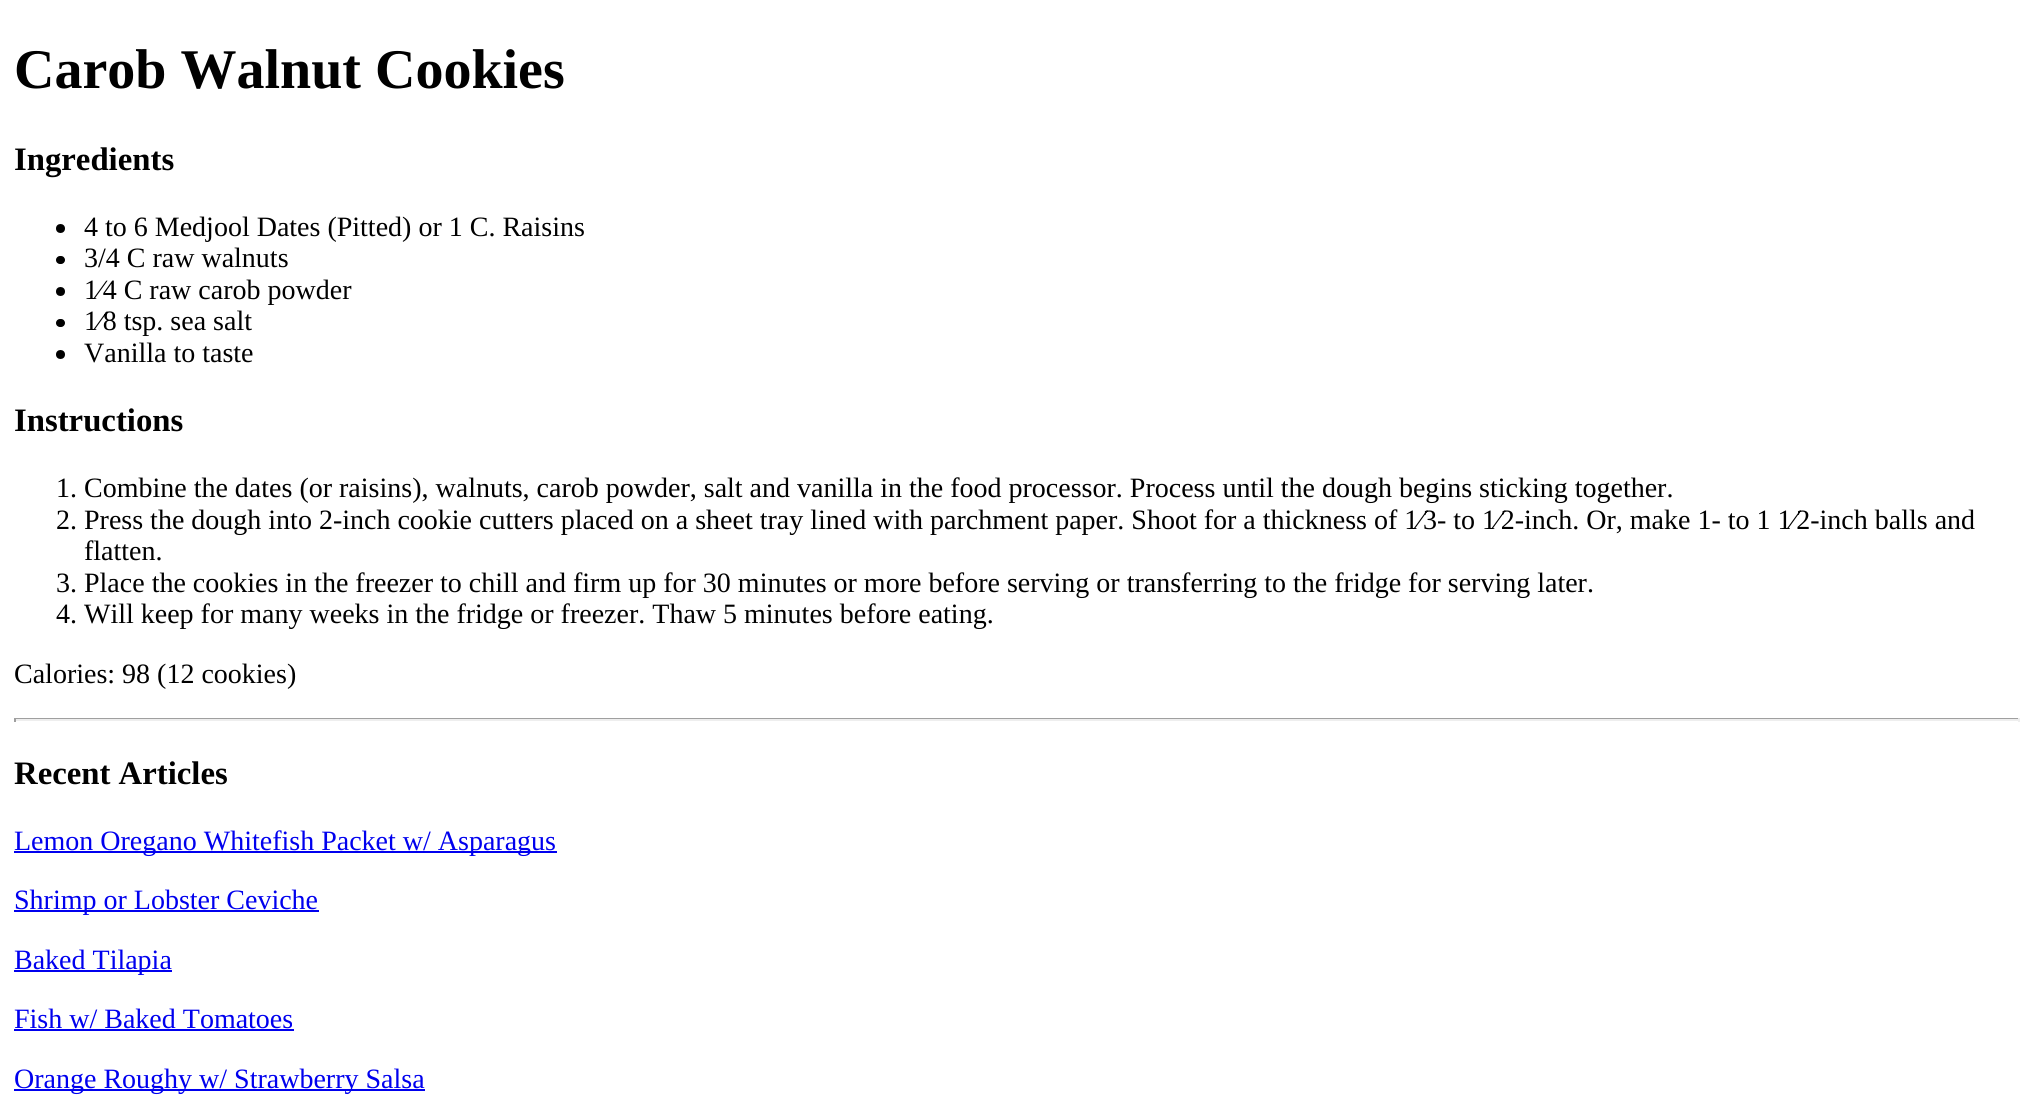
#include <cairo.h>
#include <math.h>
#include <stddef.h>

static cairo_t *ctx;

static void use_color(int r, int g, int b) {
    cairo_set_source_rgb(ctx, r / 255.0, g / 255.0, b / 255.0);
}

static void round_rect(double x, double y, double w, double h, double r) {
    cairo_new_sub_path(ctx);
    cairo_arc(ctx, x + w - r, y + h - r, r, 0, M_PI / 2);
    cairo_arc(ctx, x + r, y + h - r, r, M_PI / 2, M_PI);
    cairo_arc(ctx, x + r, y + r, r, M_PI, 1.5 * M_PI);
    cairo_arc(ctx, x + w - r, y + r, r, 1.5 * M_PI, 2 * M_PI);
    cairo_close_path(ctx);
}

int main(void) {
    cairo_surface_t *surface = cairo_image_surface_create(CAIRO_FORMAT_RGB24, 2032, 1099);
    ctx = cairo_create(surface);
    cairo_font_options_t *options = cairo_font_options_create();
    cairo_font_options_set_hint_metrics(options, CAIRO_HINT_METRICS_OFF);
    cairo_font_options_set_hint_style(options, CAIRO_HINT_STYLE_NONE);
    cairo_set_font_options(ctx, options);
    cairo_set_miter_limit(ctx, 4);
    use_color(255, 255, 255);
    cairo_paint(ctx);
    cairo_select_font_face(ctx, "Liberation Serif", CAIRO_FONT_SLANT_NORMAL, CAIRO_FONT_WEIGHT_BOLD);
    cairo_set_font_size(ctx, 56);
    use_color(0, 0, 0);
    cairo_move_to(ctx, 14, 88);
    cairo_show_text(ctx, "Carob Walnut Cookies");
    cairo_set_font_size(ctx, 32.75);
    cairo_move_to(ctx, 14, 170);
    cairo_show_text(ctx, "Ingredients");
    cairo_new_path(ctx);
    cairo_arc(ctx, 60.5, 228.5, 4.5, 0, 2 * M_PI);
    cairo_fill(ctx);
    cairo_select_font_face(ctx, "Liberation Serif", CAIRO_FONT_SLANT_NORMAL, CAIRO_FONT_WEIGHT_NORMAL);
    cairo_set_font_size(ctx, 28);
    cairo_move_to(ctx, 84, 236);
    cairo_show_text(ctx, "4 to 6 Medjool Dates (Pitted) or 1 C. Raisins");
    round_rect(56, 256, 9, 8, 4);
    cairo_fill(ctx);
    cairo_move_to(ctx, 84, 267);
    cairo_show_text(ctx, "3/4 C raw walnuts");
    cairo_new_path(ctx);
    cairo_arc(ctx, 60.5, 291.5, 4.5, 0, 2 * M_PI);
    cairo_fill(ctx);
    cairo_move_to(ctx, 84, 299);
    cairo_show_text(ctx, "1⁄4 C raw carob powder");
    round_rect(56, 319, 9, 8, 4);
    cairo_fill(ctx);
    cairo_move_to(ctx, 84, 330);
    cairo_show_text(ctx, "1⁄8 tsp. sea salt");
    cairo_new_path(ctx);
    cairo_arc(ctx, 60.5, 354.5, 4.5, 0, 2 * M_PI);
    cairo_fill(ctx);
    cairo_move_to(ctx, 84, 362);
    cairo_show_text(ctx, "Vanilla to taste");
    cairo_select_font_face(ctx, "Liberation Serif", CAIRO_FONT_SLANT_NORMAL, CAIRO_FONT_WEIGHT_BOLD);
    cairo_set_font_size(ctx, 32.75);
    cairo_move_to(ctx, 14, 431);
    cairo_show_text(ctx, "Instructions");
    cairo_select_font_face(ctx, "Liberation Serif", CAIRO_FONT_SLANT_NORMAL, CAIRO_FONT_WEIGHT_NORMAL);
    cairo_set_font_size(ctx, 28);
    cairo_move_to(ctx, 56, 497);
    cairo_show_text(ctx, "1. Combine the dates (or raisins), walnuts, carob powder, salt and vanilla in the food processor. Process until the dough begins sticking together.");
    cairo_move_to(ctx, 56, 529);
    cairo_show_text(ctx, "2. Press the dough into 2-inch cookie cutters placed on a sheet tray lined with parchment paper. Shoot for a thickness of 1⁄3- to 1⁄2-inch. Or, make 1- to 1 1⁄2-inch balls and");
    cairo_move_to(ctx, 84, 560);
    cairo_show_text(ctx, "flatten.");
    cairo_move_to(ctx, 56, 592);
    cairo_show_text(ctx, "3. Place the cookies in the freezer to chill and firm up for 30 minutes or more before serving or transferring to the fridge for serving later.");
    cairo_move_to(ctx, 56, 623);
    cairo_show_text(ctx, "4. Will keep for many weeks in the fridge or freezer. Thaw 5 minutes before eating.");
    cairo_move_to(ctx, 14, 683);
    cairo_show_text(ctx, "Calories: 98 (12 cookies)");
    use_color(159, 159, 159);
    cairo_rectangle(ctx, 14, 718, 2006, 1);
    cairo_fill(ctx);
    use_color(238, 238, 238);
    cairo_rectangle(ctx, 2018, 718, 2, 4);
    cairo_fill(ctx);
    cairo_rectangle(ctx, 14, 719, 2006, 2);
    cairo_fill(ctx);
    use_color(159, 159, 159);
    cairo_rectangle(ctx, 14, 718, 2, 4);
    cairo_fill(ctx);
    cairo_select_font_face(ctx, "Liberation Serif", CAIRO_FONT_SLANT_NORMAL, CAIRO_FONT_WEIGHT_BOLD);
    cairo_set_font_size(ctx, 32.75);
    use_color(0, 0, 0);
    cairo_move_to(ctx, 14, 784);
    cairo_show_text(ctx, "Recent Articles");
    use_color(0, 0, 238);
    cairo_rectangle(ctx, 14, 851, 543, 2);
    cairo_fill(ctx);
    cairo_select_font_face(ctx, "Liberation Serif", CAIRO_FONT_SLANT_NORMAL, CAIRO_FONT_WEIGHT_NORMAL);
    cairo_set_font_size(ctx, 28);
    cairo_move_to(ctx, 14, 850);
    cairo_show_text(ctx, "Lemon Oregano Whitefish Packet w/ Asparagus");
    cairo_rectangle(ctx, 14, 910, 305, 2);
    cairo_fill(ctx);
    cairo_move_to(ctx, 14, 909);
    cairo_show_text(ctx, "Shrimp or Lobster Ceviche");
    cairo_rectangle(ctx, 14, 970, 158, 2);
    cairo_fill(ctx);
    cairo_move_to(ctx, 14, 969);
    cairo_show_text(ctx, "Baked Tilapia");
    cairo_move_to(ctx, 14, 1028);
    cairo_show_text(ctx, "Fish w/ Baked Tomatoes");
    cairo_rectangle(ctx, 14, 1029, 280, 2);
    cairo_fill(ctx);
    cairo_rectangle(ctx, 14, 1089, 411, 2);
    cairo_fill(ctx);
    cairo_move_to(ctx, 14, 1088);
    cairo_show_text(ctx, "Orange Roughy w/ Strawberry Salsa");
    cairo_surface_write_to_png(surface, "result.png");
    cairo_font_options_destroy(options);
    cairo_destroy(ctx);
    cairo_surface_destroy(surface);
    return 0;
}
